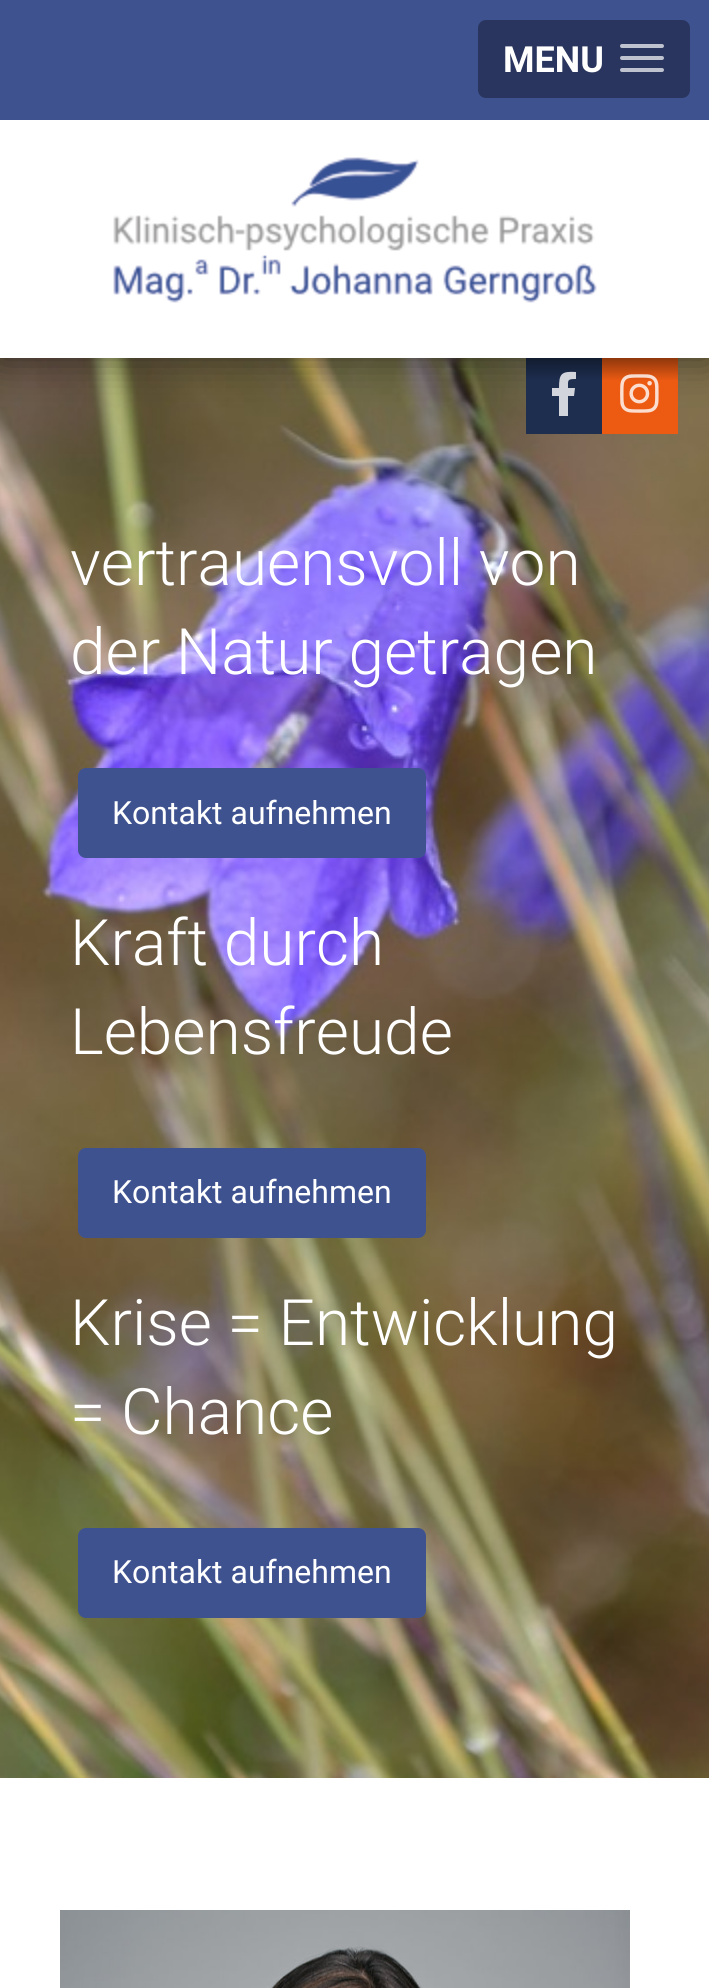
#include <cairo.h>
#include <math.h>
#include <stddef.h>

static cairo_t *ctx;

static void use_color(int r, int g, int b) {
    cairo_set_source_rgb(ctx, r / 255.0, g / 255.0, b / 255.0);
}

static void round_rect(double x, double y, double w, double h, double r) {
    cairo_new_sub_path(ctx);
    cairo_arc(ctx, x + w - r, y + h - r, r, 0, M_PI / 2);
    cairo_arc(ctx, x + r, y + h - r, r, M_PI / 2, M_PI);
    cairo_arc(ctx, x + r, y + r, r, M_PI, 1.5 * M_PI);
    cairo_arc(ctx, x + w - r, y + r, r, 1.5 * M_PI, 2 * M_PI);
    cairo_close_path(ctx);
}

static void shadow(double x, double y, double w, double h, double r, double blur, double alpha) {
    cairo_push_group_with_content(ctx, CAIRO_CONTENT_ALPHA);
    cairo_set_operator(ctx, CAIRO_OPERATOR_SOURCE);
    for (int i = 15; i >= -15 && fmin(w, h) + blur * i / 3 > 0; i -= 2) {
        double e = blur * i / 6;
        cairo_set_source_rgba(ctx, 0, 0, 0, alpha * erfc((i - 1) / 8.5) / 2);
        round_rect(x - e, y - e, w + 2 * e, h + 2 * e, fmax(0, fmin(r + e + blur * .6, fmin(w, h) / 2 + e)));
        cairo_fill(ctx);
    }
    cairo_pattern_t *soft = cairo_pop_group(ctx);
    cairo_mask(ctx, soft);
    cairo_pattern_destroy(soft);
}

static void picture(const char *path, double x, double y, double w, double h) {
    cairo_surface_t *image = cairo_image_surface_create_from_png(path);
    cairo_save(ctx);
    cairo_set_source_surface(ctx, image, x, y);
    cairo_rectangle(ctx, x, y, w, h);
    cairo_fill(ctx);
    cairo_restore(ctx);
    cairo_surface_destroy(image);
}

int main(void) {
    cairo_surface_t *surface = cairo_image_surface_create(CAIRO_FORMAT_RGB24, 709, 1988);
    ctx = cairo_create(surface);
    cairo_font_options_t *options = cairo_font_options_create();
    cairo_font_options_set_hint_metrics(options, CAIRO_HINT_METRICS_OFF);
    cairo_font_options_set_hint_style(options, CAIRO_HINT_STYLE_NONE);
    cairo_set_font_options(ctx, options);
    cairo_set_miter_limit(ctx, 4);
    cairo_pattern_t *gradient;
    use_color(255, 255, 255);
    cairo_paint(ctx);
    picture("img1.png", 0, 358, 709, 1420);
    use_color(0, 0, 0);
    shadow(0, 120, 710, 238, 0, 20, 0.5);
    use_color(63, 82, 144);
    cairo_rectangle(ctx, 0, 0, 709, 120);
    cairo_fill(ctx);
    use_color(41, 53, 94);
    round_rect(478, 20, 212, 78, 8);
    cairo_fill(ctx);
    cairo_select_font_face(ctx, "Roboto", CAIRO_FONT_SLANT_NORMAL, CAIRO_FONT_WEIGHT_BOLD);
    cairo_set_font_size(ctx, 36);
    use_color(255, 255, 255);
    cairo_move_to(ctx, 503, 72);
    cairo_show_text(ctx, "MENU");
    use_color(191, 194, 207);
    round_rect(620, 44, 44, 4, 2);
    cairo_fill(ctx);
    round_rect(620, 56, 44, 4, 2);
    cairo_fill(ctx);
    round_rect(620, 68, 44, 4, 2);
    cairo_fill(ctx);
    use_color(255, 255, 255);
    cairo_rectangle(ctx, 0, 120, 709, 238);
    cairo_fill(ctx);
    picture("img2.png", 113, 157, 484, 146);
    gradient = cairo_pattern_create_linear(564, 358, 564, 434);
    cairo_pattern_add_color_stop_rgba(gradient, 0, 0.071, 0.11, 0.188, 1);
    cairo_pattern_add_color_stop_rgba(gradient, 0.3, 0.118, 0.18, 0.31, 1);
    cairo_set_source(ctx, gradient);
    cairo_pattern_destroy(gradient);
    cairo_rectangle(ctx, 526, 358, 76, 76);
    cairo_fill(ctx);
    use_color(210, 213, 220);
    cairo_new_path(ctx);
    cairo_move_to(ctx, 574, 396);
    cairo_line_to(ctx, 568, 396);
    cairo_line_to(ctx, 568, 416);
    cairo_line_to(ctx, 559, 416);
    cairo_line_to(ctx, 559, 396);
    cairo_line_to(ctx, 552, 396);
    cairo_line_to(ctx, 552, 388);
    cairo_line_to(ctx, 559, 388);
    cairo_curve_to(ctx, 559, 374, 561, 371, 576, 372);
    cairo_line_to(ctx, 576, 379);
    cairo_curve_to(ctx, 567, 379, 568, 380, 568, 388);
    cairo_line_to(ctx, 575, 388);
    cairo_close_path(ctx);
    cairo_fill(ctx);
    gradient = cairo_pattern_create_linear(640, 358, 640, 434);
    cairo_pattern_add_color_stop_rgba(gradient, 0, 0.557, 0.216, 0.047, 1);
    cairo_pattern_add_color_stop_rgba(gradient, 0.3, 0.929, 0.357, 0.075, 1);
    cairo_set_source(ctx, gradient);
    cairo_pattern_destroy(gradient);
    cairo_rectangle(ctx, 602, 358, 76, 76);
    cairo_fill(ctx);
    picture("img3.png", 620, 374, 39, 39);
    cairo_select_font_face(ctx, "Roboto Light", CAIRO_FONT_SLANT_NORMAL, CAIRO_FONT_WEIGHT_NORMAL);
    cairo_set_font_size(ctx, 64);
    use_color(255, 255, 255);
    cairo_move_to(ctx, 70, 585);
    cairo_show_text(ctx, "vertrauensvoll von");
    cairo_move_to(ctx, 70, 674);
    cairo_show_text(ctx, "der Natur getragen");
    use_color(63, 82, 144);
    round_rect(79, 769, 346, 88, 7);
    cairo_fill_preserve(ctx);
    cairo_stroke(ctx);
    cairo_select_font_face(ctx, "Roboto", CAIRO_FONT_SLANT_NORMAL, CAIRO_FONT_WEIGHT_NORMAL);
    cairo_set_font_size(ctx, 32);
    use_color(255, 255, 255);
    cairo_move_to(ctx, 112, 824);
    cairo_show_text(ctx, "Kontakt aufnehmen");
    cairo_select_font_face(ctx, "Roboto Light", CAIRO_FONT_SLANT_NORMAL, CAIRO_FONT_WEIGHT_NORMAL);
    cairo_set_font_size(ctx, 64);
    cairo_move_to(ctx, 70, 965);
    cairo_show_text(ctx, "Kraft durch");
    cairo_move_to(ctx, 70, 1054);
    cairo_show_text(ctx, "Lebensfreude");
    use_color(63, 82, 144);
    round_rect(79, 1149, 346, 88, 7);
    cairo_fill_preserve(ctx);
    cairo_stroke(ctx);
    cairo_select_font_face(ctx, "Roboto", CAIRO_FONT_SLANT_NORMAL, CAIRO_FONT_WEIGHT_NORMAL);
    cairo_set_font_size(ctx, 32);
    use_color(255, 255, 255);
    cairo_move_to(ctx, 112, 1203);
    cairo_show_text(ctx, "Kontakt aufnehmen");
    cairo_select_font_face(ctx, "Roboto Light", CAIRO_FONT_SLANT_NORMAL, CAIRO_FONT_WEIGHT_NORMAL);
    cairo_set_font_size(ctx, 64);
    cairo_move_to(ctx, 70, 1345);
    cairo_show_text(ctx, "Krise = Entwicklung");
    cairo_move_to(ctx, 70, 1434);
    cairo_show_text(ctx, "= Chance");
    use_color(63, 82, 144);
    round_rect(79, 1529, 346, 88, 7);
    cairo_fill_preserve(ctx);
    cairo_stroke(ctx);
    cairo_select_font_face(ctx, "Roboto", CAIRO_FONT_SLANT_NORMAL, CAIRO_FONT_WEIGHT_NORMAL);
    cairo_set_font_size(ctx, 32);
    use_color(255, 255, 255);
    cairo_move_to(ctx, 112, 1583);
    cairo_show_text(ctx, "Kontakt aufnehmen");
    picture("img4.png", 60, 1910, 570, 78);
    cairo_surface_write_to_png(surface, "result.png");
    cairo_font_options_destroy(options);
    cairo_destroy(ctx);
    cairo_surface_destroy(surface);
    return 0;
}
